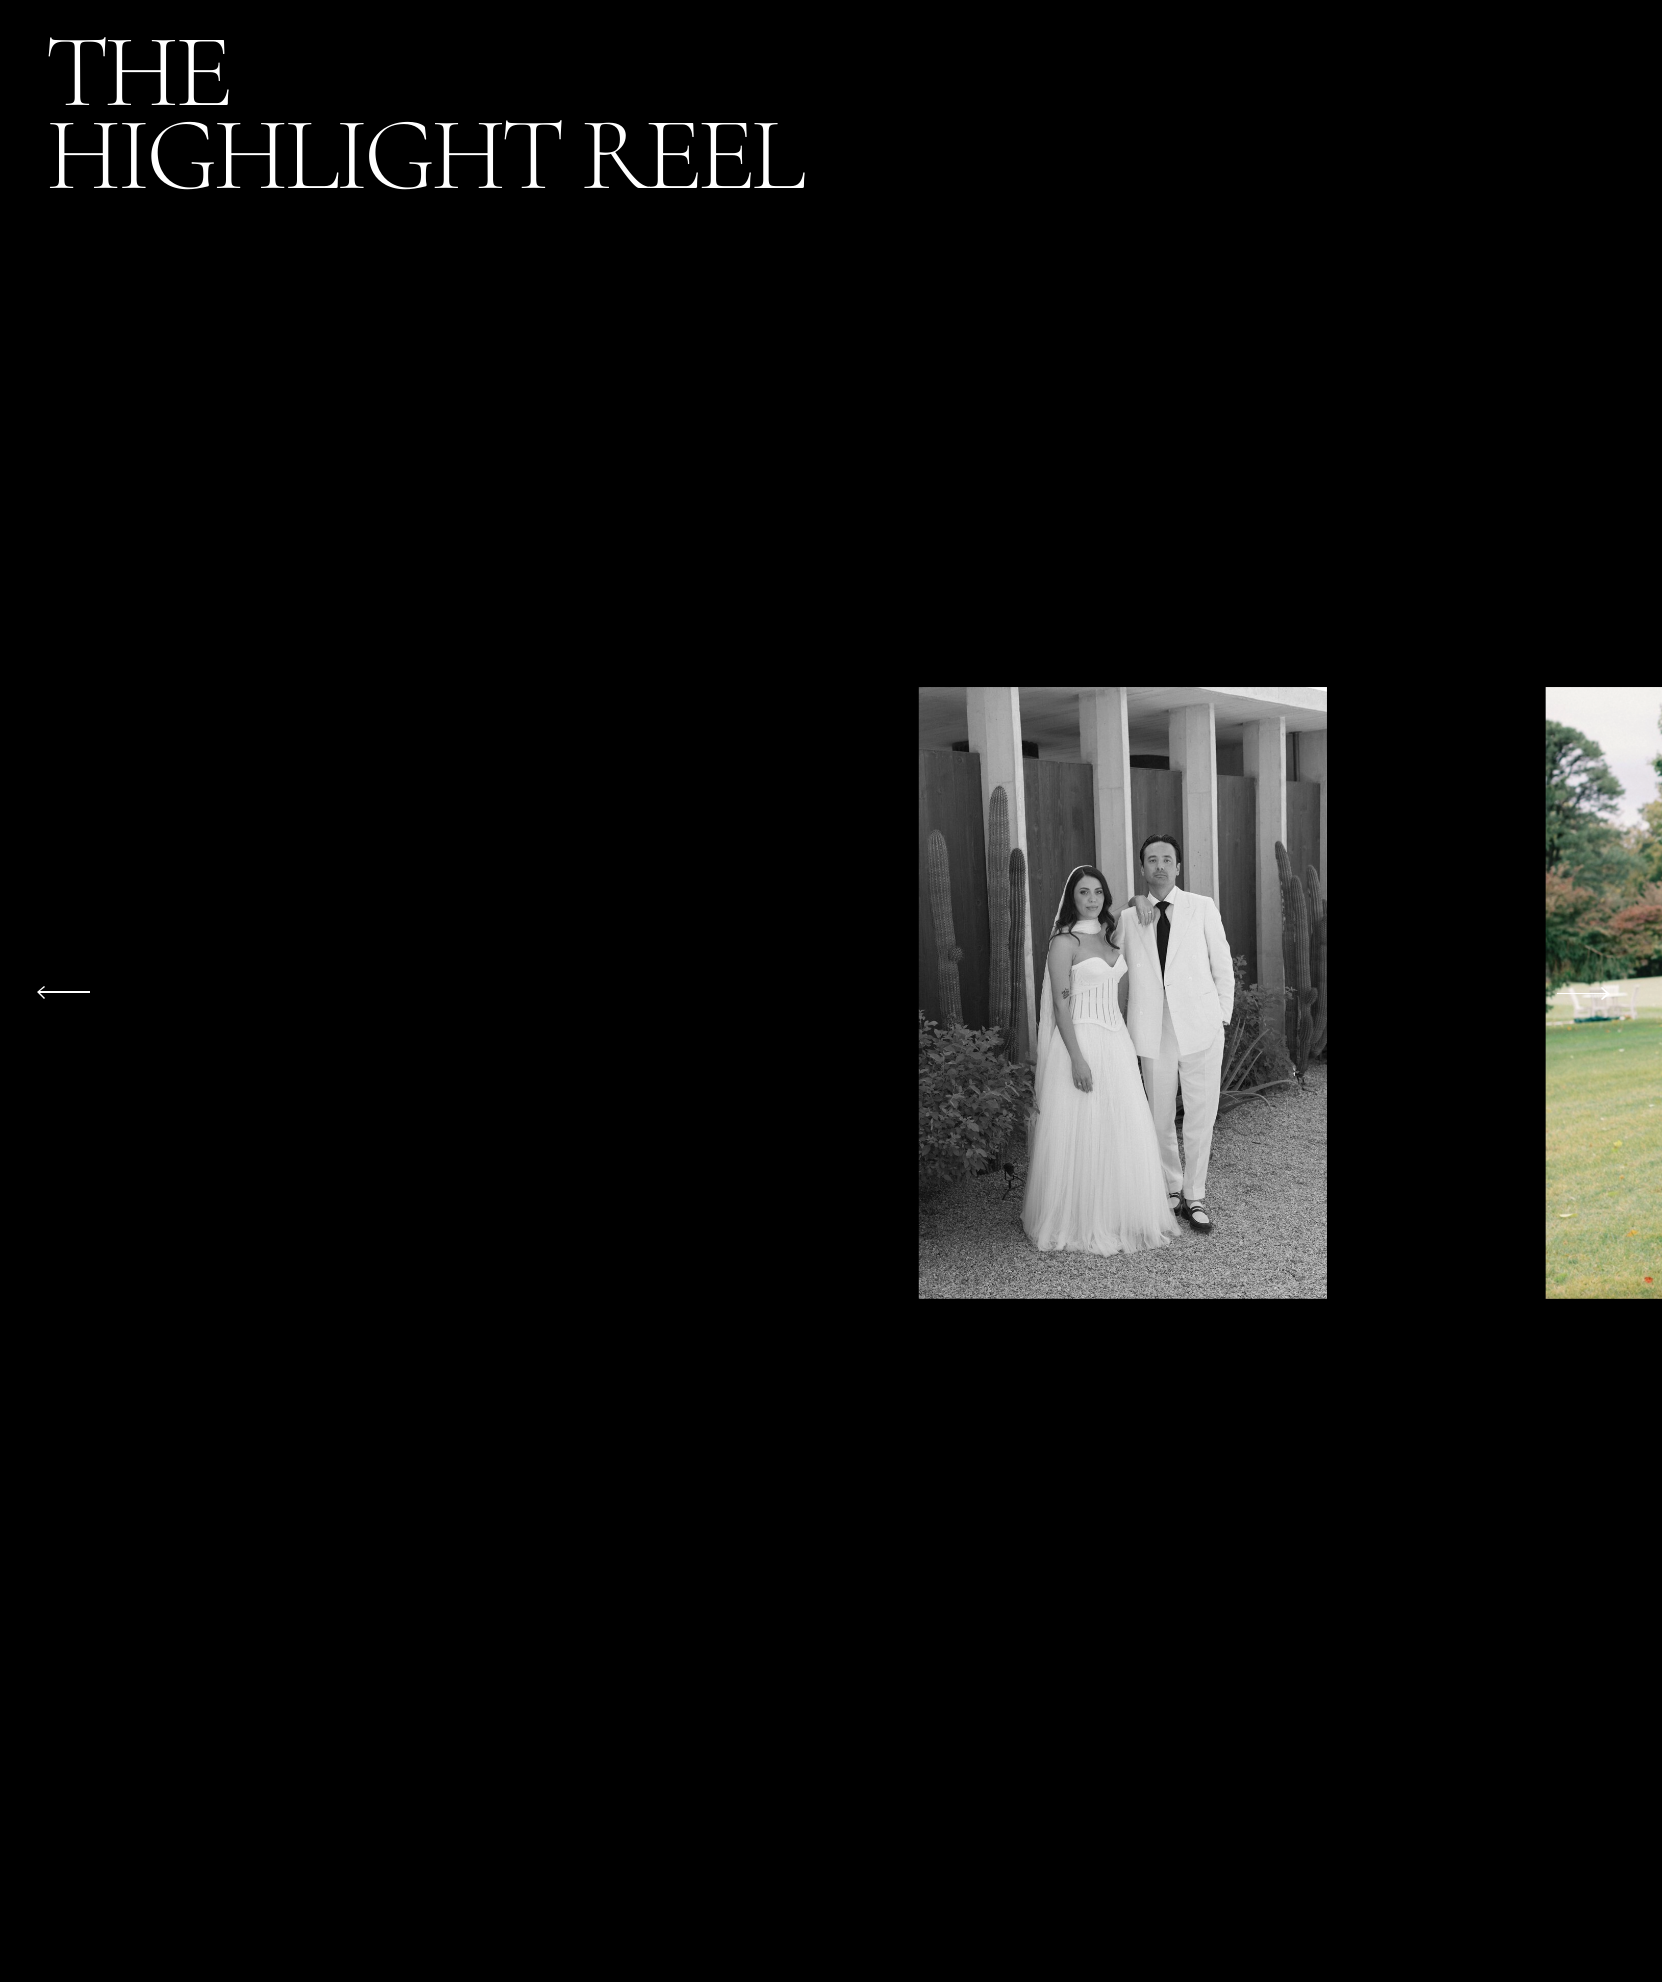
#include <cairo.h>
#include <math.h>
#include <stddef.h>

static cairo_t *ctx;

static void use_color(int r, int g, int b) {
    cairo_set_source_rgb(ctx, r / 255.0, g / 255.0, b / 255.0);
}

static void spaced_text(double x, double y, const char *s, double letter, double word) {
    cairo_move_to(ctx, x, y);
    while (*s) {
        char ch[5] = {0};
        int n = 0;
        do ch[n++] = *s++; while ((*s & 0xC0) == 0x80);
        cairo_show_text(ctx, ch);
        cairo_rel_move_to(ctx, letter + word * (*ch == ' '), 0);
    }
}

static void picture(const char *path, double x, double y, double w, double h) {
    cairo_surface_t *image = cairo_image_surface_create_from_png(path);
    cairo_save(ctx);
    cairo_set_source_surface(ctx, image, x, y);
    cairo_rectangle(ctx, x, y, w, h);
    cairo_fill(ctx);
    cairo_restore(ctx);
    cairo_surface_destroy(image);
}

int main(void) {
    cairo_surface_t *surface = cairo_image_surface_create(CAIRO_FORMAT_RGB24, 1662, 1982);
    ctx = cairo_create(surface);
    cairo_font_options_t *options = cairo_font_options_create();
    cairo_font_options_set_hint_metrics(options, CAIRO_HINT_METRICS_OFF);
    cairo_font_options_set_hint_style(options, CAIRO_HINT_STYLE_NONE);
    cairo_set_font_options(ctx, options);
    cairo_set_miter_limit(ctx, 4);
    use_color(0, 0, 0);
    cairo_paint(ctx);
    cairo_select_font_face(ctx, "Cormorant Upright Light", CAIRO_FONT_SLANT_NORMAL, CAIRO_FONT_WEIGHT_NORMAL);
    cairo_set_font_size(ctx, 104);
    use_color(255, 255, 255);
    spaced_text(46, 105, "THE", -4.2, 0);
    spaced_text(46, 188, "HIGHLIGHT REEL", -4.2, 0);
    cairo_new_path(ctx);
    cairo_move_to(ctx, 44, 999);
    cairo_line_to(ctx, 45, 998);
    cairo_line_to(ctx, 40, 993);
    cairo_line_to(ctx, 90, 993);
    cairo_line_to(ctx, 90, 991);
    cairo_line_to(ctx, 40, 991);
    cairo_line_to(ctx, 45, 987);
    cairo_line_to(ctx, 44, 986);
    cairo_line_to(ctx, 37, 992);
    cairo_close_path(ctx);
    cairo_fill(ctx);
    picture("img1.png", 918, 687, 409, 612);
    picture("img2.png", 1545, 687, 117, 612);
    cairo_new_path(ctx);
    cairo_move_to(ctx, 1602, 987);
    cairo_line_to(ctx, 1601, 988);
    cairo_line_to(ctx, 1606, 993);
    cairo_line_to(ctx, 1557, 993);
    cairo_line_to(ctx, 1557, 994);
    cairo_line_to(ctx, 1606, 994);
    cairo_line_to(ctx, 1601, 999);
    cairo_line_to(ctx, 1602, 1000);
    cairo_line_to(ctx, 1610, 994);
    cairo_close_path(ctx);
    cairo_fill(ctx);
    cairo_surface_write_to_png(surface, "result.png");
    cairo_font_options_destroy(options);
    cairo_destroy(ctx);
    cairo_surface_destroy(surface);
    return 0;
}
